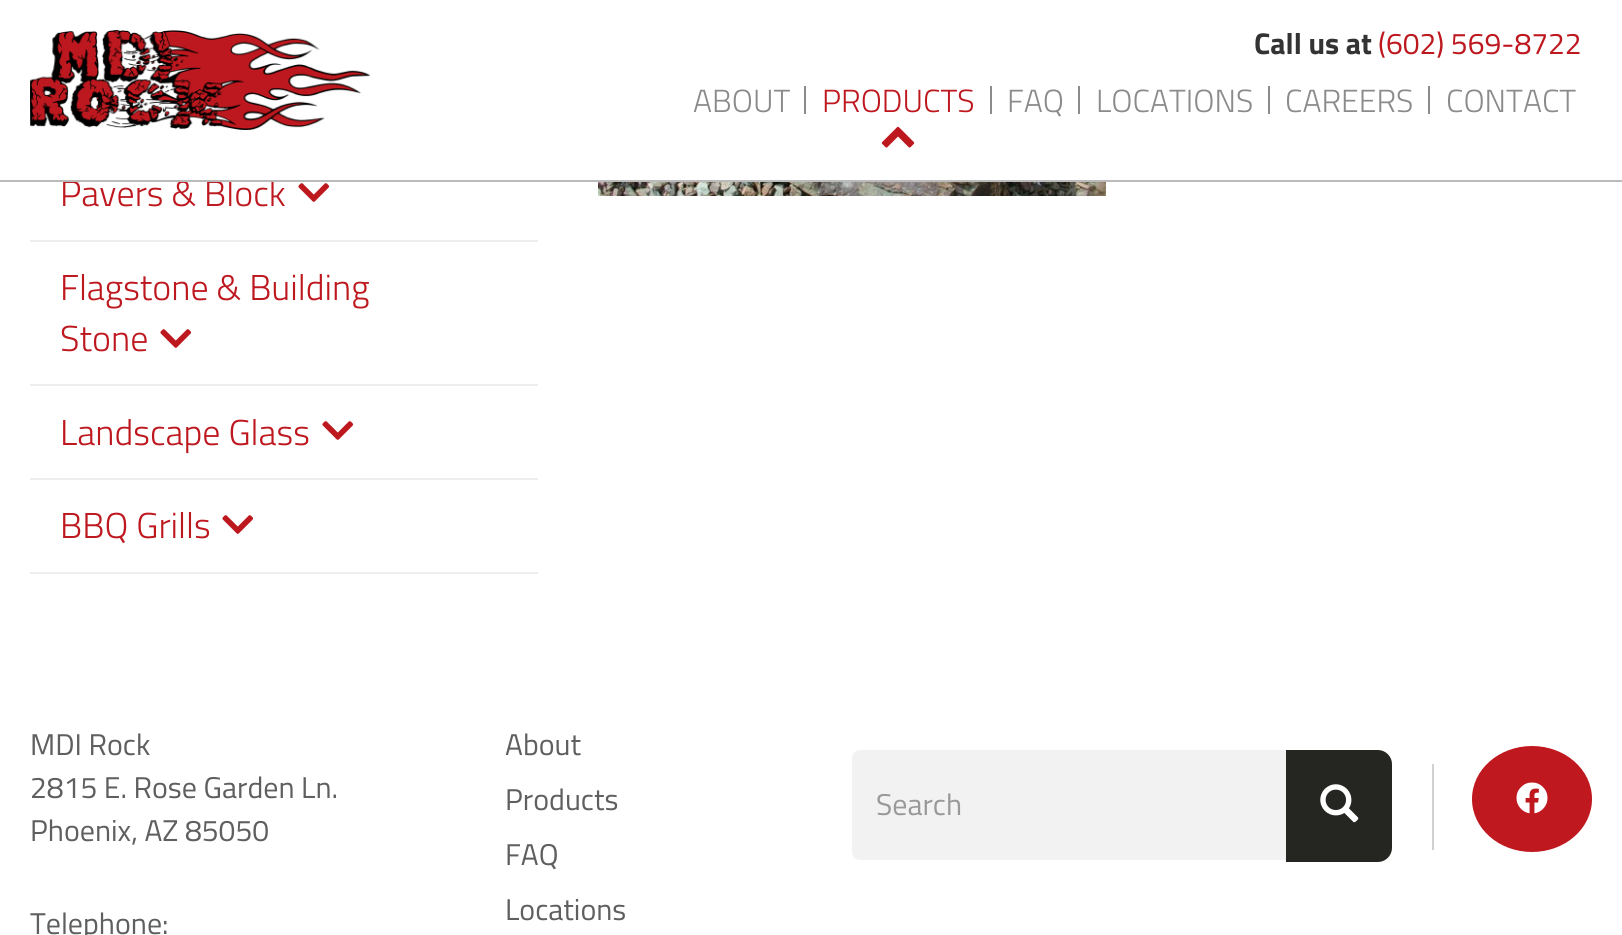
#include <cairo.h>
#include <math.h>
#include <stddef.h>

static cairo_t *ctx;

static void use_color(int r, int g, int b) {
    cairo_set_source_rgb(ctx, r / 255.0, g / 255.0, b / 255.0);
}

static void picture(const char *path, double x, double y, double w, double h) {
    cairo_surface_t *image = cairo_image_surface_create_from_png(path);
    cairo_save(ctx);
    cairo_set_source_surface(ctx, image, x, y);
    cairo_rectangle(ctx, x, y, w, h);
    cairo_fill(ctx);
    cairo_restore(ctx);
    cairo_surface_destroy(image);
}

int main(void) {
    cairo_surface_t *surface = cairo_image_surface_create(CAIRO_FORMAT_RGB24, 1622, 935);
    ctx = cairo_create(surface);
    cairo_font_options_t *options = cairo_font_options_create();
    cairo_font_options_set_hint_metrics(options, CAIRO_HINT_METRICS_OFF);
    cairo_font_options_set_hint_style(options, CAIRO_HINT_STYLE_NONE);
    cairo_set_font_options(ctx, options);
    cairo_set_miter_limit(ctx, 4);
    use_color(255, 255, 255);
    cairo_paint(ctx);
    cairo_select_font_face(ctx, "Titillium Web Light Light", CAIRO_FONT_SLANT_NORMAL, CAIRO_FONT_WEIGHT_NORMAL);
    cairo_set_font_size(ctx, 36);
    use_color(190, 24, 31);
    cairo_move_to(ctx, 60, 206);
    cairo_show_text(ctx, "Pavers & Block");
    use_color(187, 187, 187);
    cairo_rectangle(ctx, 0, 180, 1622, 2);
    cairo_fill(ctx);
    picture("img1.png", 30, 30, 340, 100);
    cairo_select_font_face(ctx, "Titillium Web", CAIRO_FONT_SLANT_NORMAL, CAIRO_FONT_WEIGHT_BOLD);
    cairo_set_font_size(ctx, 30);
    use_color(51, 51, 51);
    cairo_move_to(ctx, 1254, 54);
    cairo_show_text(ctx, "Call us at");
    cairo_select_font_face(ctx, "Titillium Web", CAIRO_FONT_SLANT_NORMAL, CAIRO_FONT_WEIGHT_NORMAL);
    use_color(190, 24, 31);
    cairo_move_to(ctx, 1378, 54);
    cairo_show_text(ctx, "(602) 569-8722");
    cairo_select_font_face(ctx, "Titillium Web Light Light", CAIRO_FONT_SLANT_NORMAL, CAIRO_FONT_WEIGHT_NORMAL);
    cairo_set_font_size(ctx, 32);
    use_color(139, 139, 139);
    cairo_move_to(ctx, 693, 112);
    cairo_show_text(ctx, "ABOUT");
    cairo_rectangle(ctx, 804, 86, 2, 28);
    cairo_fill(ctx);
    use_color(190, 24, 31);
    cairo_move_to(ctx, 822, 112);
    cairo_show_text(ctx, "PRODUCTS");
    picture("img2.png", 881, 126, 34, 22);
    use_color(139, 139, 139);
    cairo_rectangle(ctx, 990, 86, 2, 28);
    cairo_fill(ctx);
    cairo_move_to(ctx, 1007, 112);
    cairo_show_text(ctx, "FAQ");
    cairo_rectangle(ctx, 1078, 86, 2, 28);
    cairo_fill(ctx);
    cairo_move_to(ctx, 1096, 112);
    cairo_show_text(ctx, "LOCATIONS");
    cairo_rectangle(ctx, 1268, 86, 2, 28);
    cairo_fill(ctx);
    cairo_move_to(ctx, 1285, 112);
    cairo_show_text(ctx, "CAREERS");
    cairo_rectangle(ctx, 1428, 86, 2, 28);
    cairo_fill(ctx);
    cairo_move_to(ctx, 1446, 112);
    cairo_show_text(ctx, "CONTACT");
    use_color(238, 238, 238);
    cairo_rectangle(ctx, 30, 240, 508, 2);
    cairo_fill(ctx);
    picture("img3.png", 298, 183, 32, 19);
    cairo_rectangle(ctx, 30, 384, 508, 2);
    cairo_fill(ctx);
    cairo_set_font_size(ctx, 36);
    use_color(190, 24, 31);
    cairo_move_to(ctx, 60, 300);
    cairo_show_text(ctx, "Flagstone & Building");
    cairo_move_to(ctx, 60, 351);
    cairo_show_text(ctx, "Stone");
    picture("img3.png", 160, 329, 32, 19);
    use_color(238, 238, 238);
    cairo_rectangle(ctx, 30, 478, 508, 2);
    cairo_fill(ctx);
    use_color(190, 24, 31);
    cairo_move_to(ctx, 60, 445);
    cairo_show_text(ctx, "Landscape Glass");
    picture("img3.png", 322, 421, 32, 19);
    use_color(238, 238, 238);
    cairo_rectangle(ctx, 30, 572, 508, 2);
    cairo_fill(ctx);
    use_color(190, 24, 31);
    cairo_move_to(ctx, 60, 538);
    cairo_show_text(ctx, "BBQ Grills");
    picture("img3.png", 222, 515, 32, 19);
    picture("img4.png", 598, 182, 508, 14);
    cairo_select_font_face(ctx, "Titillium Web", CAIRO_FONT_SLANT_NORMAL, CAIRO_FONT_WEIGHT_NORMAL);
    cairo_set_font_size(ctx, 30);
    use_color(95, 95, 95);
    cairo_move_to(ctx, 30, 755);
    cairo_show_text(ctx, "MDI Rock");
    cairo_move_to(ctx, 30, 798);
    cairo_show_text(ctx, "2815 E. Rose Garden Ln.");
    cairo_move_to(ctx, 30, 841);
    cairo_show_text(ctx, "Phoenix, AZ 85050");
    cairo_move_to(ctx, 30, 934);
    cairo_show_text(ctx, "Telephone:");
    cairo_move_to(ctx, 505, 755);
    cairo_show_text(ctx, "About");
    cairo_move_to(ctx, 505, 810);
    cairo_show_text(ctx, "Products");
    cairo_move_to(ctx, 505, 865);
    cairo_show_text(ctx, "FAQ");
    cairo_move_to(ctx, 505, 920);
    cairo_show_text(ctx, "Locations");
    use_color(242, 242, 242);
    cairo_new_path(ctx);
    cairo_move_to(ctx, 860, 750);
    cairo_line_to(ctx, 1288, 750);
    cairo_line_to(ctx, 1288, 860);
    cairo_line_to(ctx, 860, 860);
    cairo_curve_to(ctx, 855.5, 860, 852, 856.5, 852, 852);
    cairo_line_to(ctx, 852, 758);
    cairo_curve_to(ctx, 852, 753.5, 855.5, 750, 860, 750);
    cairo_close_path(ctx);
    cairo_fill(ctx);
    use_color(153, 153, 153);
    cairo_move_to(ctx, 876, 815);
    cairo_show_text(ctx, "Search");
    use_color(37, 37, 33);
    cairo_new_path(ctx);
    cairo_move_to(ctx, 1287, 751);
    cairo_line_to(ctx, 1378, 751);
    cairo_curve_to(ctx, 1385, 751, 1391, 757, 1391, 764);
    cairo_line_to(ctx, 1391, 848);
    cairo_curve_to(ctx, 1391, 855, 1385, 861, 1378, 861);
    cairo_line_to(ctx, 1287, 861);
    cairo_close_path(ctx);
    cairo_fill_preserve(ctx);
    cairo_stroke(ctx);
    picture("img5.png", 1320, 784, 39, 39);
    use_color(209, 209, 209);
    cairo_rectangle(ctx, 1432, 764, 2, 86);
    cairo_fill(ctx);
    use_color(191, 24, 31);
    cairo_new_path(ctx);
    cairo_move_to(ctx, 1532, 746);
    cairo_curve_to(ctx, 1565, 746, 1592, 769.5, 1592, 799);
    cairo_curve_to(ctx, 1592, 828.5, 1565, 852, 1532, 852);
    cairo_curve_to(ctx, 1499, 852, 1472, 828.5, 1472, 799);
    cairo_curve_to(ctx, 1472, 769.5, 1499, 746, 1532, 746);
    cairo_close_path(ctx);
    cairo_fill(ctx);
    picture("img6.png", 1516, 782, 32, 32);
    cairo_surface_write_to_png(surface, "result.png");
    cairo_font_options_destroy(options);
    cairo_destroy(ctx);
    cairo_surface_destroy(surface);
    return 0;
}
